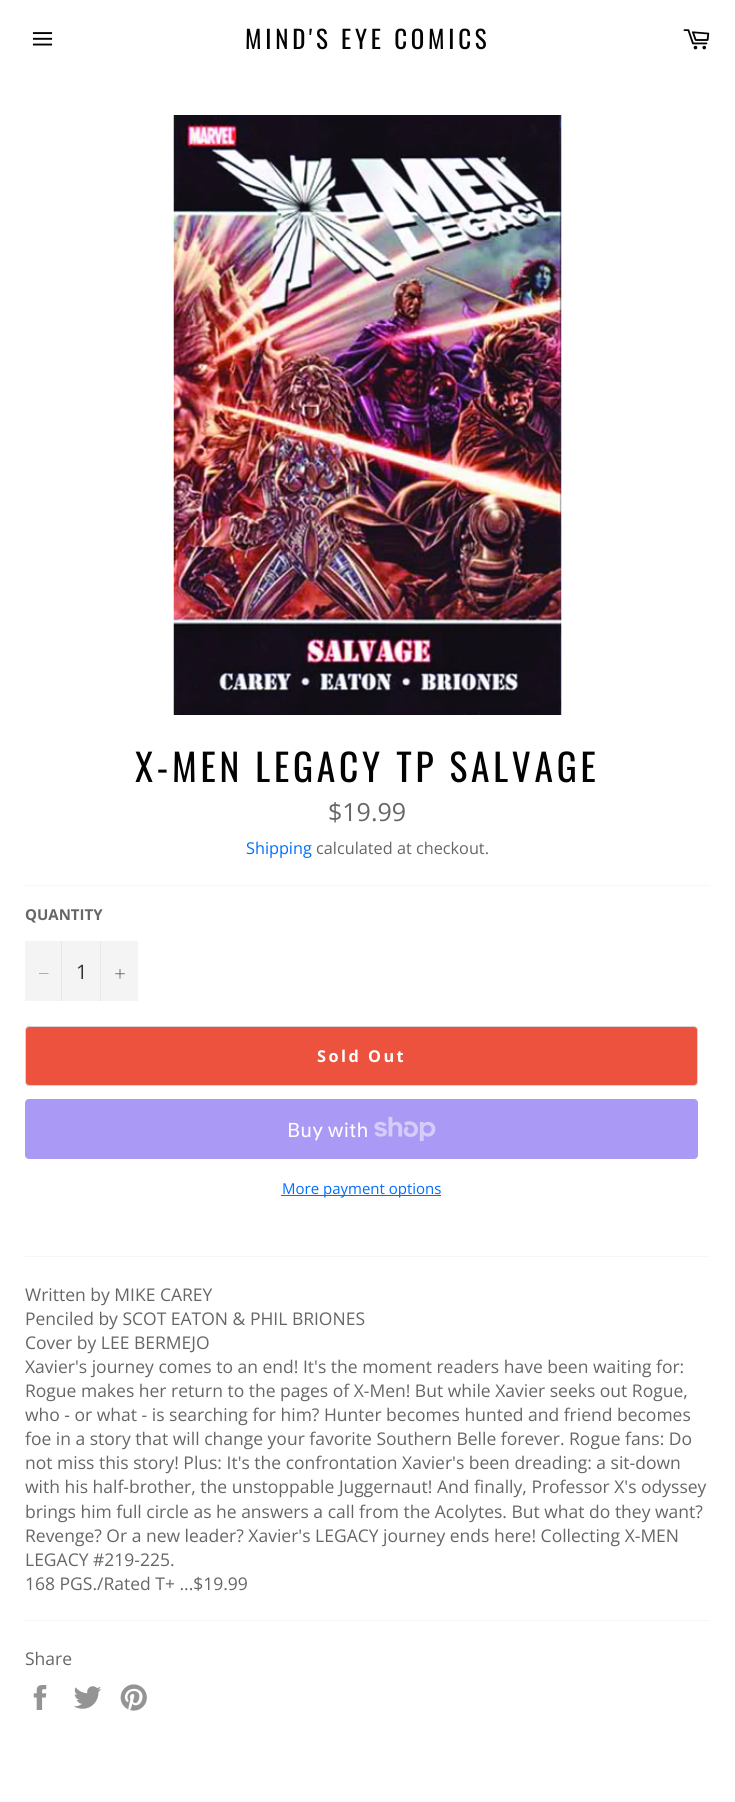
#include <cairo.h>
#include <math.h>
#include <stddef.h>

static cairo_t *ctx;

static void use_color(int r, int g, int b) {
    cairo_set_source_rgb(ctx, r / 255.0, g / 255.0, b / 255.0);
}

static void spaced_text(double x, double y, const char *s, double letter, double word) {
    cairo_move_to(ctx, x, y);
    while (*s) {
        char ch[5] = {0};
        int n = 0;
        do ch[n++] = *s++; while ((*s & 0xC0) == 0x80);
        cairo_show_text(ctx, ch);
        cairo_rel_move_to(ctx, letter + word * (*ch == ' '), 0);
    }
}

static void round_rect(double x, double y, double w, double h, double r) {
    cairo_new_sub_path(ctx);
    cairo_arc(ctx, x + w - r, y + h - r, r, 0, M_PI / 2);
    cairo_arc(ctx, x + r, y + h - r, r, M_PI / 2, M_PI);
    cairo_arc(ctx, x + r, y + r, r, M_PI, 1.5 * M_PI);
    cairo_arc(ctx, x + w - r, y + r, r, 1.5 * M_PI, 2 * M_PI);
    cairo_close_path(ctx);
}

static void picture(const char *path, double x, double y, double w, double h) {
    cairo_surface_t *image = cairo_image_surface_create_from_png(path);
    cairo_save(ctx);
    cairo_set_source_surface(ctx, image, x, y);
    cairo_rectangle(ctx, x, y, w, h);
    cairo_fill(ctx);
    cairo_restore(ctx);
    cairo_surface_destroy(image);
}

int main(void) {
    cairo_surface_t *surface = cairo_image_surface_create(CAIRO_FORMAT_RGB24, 735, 1802);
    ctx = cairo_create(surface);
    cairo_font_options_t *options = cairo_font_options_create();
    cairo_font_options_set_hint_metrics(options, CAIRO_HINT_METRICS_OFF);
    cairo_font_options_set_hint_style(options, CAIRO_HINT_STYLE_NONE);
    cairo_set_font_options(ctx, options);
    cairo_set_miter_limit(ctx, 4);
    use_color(255, 255, 255);
    cairo_paint(ctx);
    picture("img1.png", 32, 32, 21, 14);
    cairo_select_font_face(ctx, "Oswald", CAIRO_FONT_SLANT_NORMAL, CAIRO_FONT_WEIGHT_NORMAL);
    cairo_set_font_size(ctx, 25);
    use_color(3, 3, 3);
    spaced_text(245, 49, "MIND'S EYE COMICS", 3.75, 0);
    picture("img2.png", 683, 29, 27, 21);
    picture("img3.png", 173, 115, 389, 600);
    cairo_set_font_size(ctx, 37.5);
    spaced_text(135, 782, "X-MEN LEGACY TP SALVAGE", 3.75, 0);
    cairo_select_font_face(ctx, "Open Sans", CAIRO_FONT_SLANT_NORMAL, CAIRO_FONT_WEIGHT_NORMAL);
    cairo_set_font_size(ctx, 25);
    use_color(102, 102, 102);
    cairo_move_to(ctx, 328, 821);
    cairo_show_text(ctx, "$19.99");
    cairo_set_font_size(ctx, 16.25);
    use_color(0, 110, 255);
    cairo_move_to(ctx, 246, 854);
    cairo_show_text(ctx, "Shipping");
    use_color(102, 102, 102);
    cairo_move_to(ctx, 316, 854);
    cairo_show_text(ctx, "calculated at checkout.");
    use_color(247, 247, 247);
    cairo_rectangle(ctx, 25, 885, 685, 1);
    cairo_fill(ctx);
    cairo_select_font_face(ctx, "Open Sans", CAIRO_FONT_SLANT_NORMAL, CAIRO_FONT_WEIGHT_BOLD);
    cairo_set_font_size(ctx, 15);
    use_color(102, 102, 102);
    cairo_move_to(ctx, 25, 920);
    cairo_show_text(ctx, "QUANTITY");
    use_color(244, 244, 244);
    cairo_rectangle(ctx, 25, 941, 113, 60);
    cairo_fill(ctx);
    use_color(231, 231, 231);
    cairo_rectangle(ctx, 61, 941, 1, 60);
    cairo_fill(ctx);
    use_color(102, 102, 102);
    cairo_set_fill_rule(ctx, CAIRO_FILL_RULE_EVEN_ODD);
    cairo_new_path(ctx);
    cairo_move_to(ctx, 48.5, 973.5);
    cairo_line_to(ctx, 48.5, 974);
    cairo_line_to(ctx, 39, 974);
    cairo_line_to(ctx, 39, 973.5);
    cairo_close_path(ctx);
    cairo_fill(ctx);
    cairo_select_font_face(ctx, "Open Sans", CAIRO_FONT_SLANT_NORMAL, CAIRO_FONT_WEIGHT_NORMAL);
    cairo_set_font_size(ctx, 20);
    use_color(51, 51, 51);
    cairo_move_to(ctx, 76, 979);
    cairo_show_text(ctx, "1");
    use_color(231, 231, 231);
    cairo_rectangle(ctx, 100, 941, 1, 60);
    cairo_fill(ctx);
    picture("img4.png", 115, 969, 10, 10);
    use_color(236, 82, 62);
    round_rect(25.5, 1026.5, 672, 59, 3.5);
    cairo_fill_preserve(ctx);
    use_color(213, 213, 213);
    cairo_set_line_width(ctx, 1);
    cairo_stroke(ctx);
    cairo_select_font_face(ctx, "Open Sans", CAIRO_FONT_SLANT_NORMAL, CAIRO_FONT_WEIGHT_BOLD);
    cairo_set_font_size(ctx, 16.25);
    use_color(255, 255, 255);
    spaced_text(317, 1062, "Sold Out", 2.5, 0);
    use_color(170, 153, 245);
    round_rect(25, 1099, 673, 60, 4);
    cairo_fill(ctx);
    cairo_select_font_face(ctx, "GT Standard", CAIRO_FONT_SLANT_NORMAL, CAIRO_FONT_WEIGHT_NORMAL);
    cairo_set_font_size(ctx, 20);
    use_color(255, 255, 255);
    cairo_move_to(ctx, 287, 1137);
    cairo_show_text(ctx, "Buy with");
    picture("img5.png", 374, 1116, 62, 25);
    use_color(0, 110, 255);
    cairo_rectangle(ctx, 281, 1195, 160, 1);
    cairo_fill(ctx);
    cairo_select_font_face(ctx, "Open Sans", CAIRO_FONT_SLANT_NORMAL, CAIRO_FONT_WEIGHT_NORMAL);
    cairo_set_font_size(ctx, 15);
    cairo_move_to(ctx, 282, 1194);
    cairo_show_text(ctx, "More payment options");
    use_color(247, 247, 247);
    cairo_rectangle(ctx, 25, 1256, 685, 1);
    cairo_fill(ctx);
    cairo_set_font_size(ctx, 17.5);
    use_color(102, 102, 102);
    cairo_move_to(ctx, 25, 1301);
    cairo_show_text(ctx, "Written by MIKE CAREY");
    cairo_move_to(ctx, 25, 1325);
    cairo_show_text(ctx, "Penciled by SCOT EATON & PHIL BRIONES");
    cairo_move_to(ctx, 25, 1349);
    cairo_show_text(ctx, "Cover by LEE BERMEJO");
    cairo_move_to(ctx, 25, 1373);
    cairo_show_text(ctx, "Xavier's journey comes to an end! It's the moment readers have been waiting for:");
    cairo_move_to(ctx, 25, 1397);
    cairo_show_text(ctx, "Rogue makes her return to the pages of X-Men! But while Xavier seeks out Rogue,");
    cairo_move_to(ctx, 25, 1421);
    cairo_show_text(ctx, "who - or what - is searching for him? Hunter becomes hunted and friend becomes");
    cairo_move_to(ctx, 25, 1445);
    cairo_show_text(ctx, "foe in a story that will change your favorite Southern Belle forever. Rogue fans: Do");
    cairo_move_to(ctx, 25, 1469);
    cairo_show_text(ctx, "not miss this story! Plus: It's the confrontation Xavier's been dreading: a sit-down");
    cairo_move_to(ctx, 25, 1493);
    cairo_show_text(ctx, "with his half-brother, the unstoppable Juggernaut! And finally, Professor X's odyssey");
    cairo_move_to(ctx, 25, 1518);
    cairo_show_text(ctx, "brings him full circle as he answers a call from the Acolytes. But what do they want?");
    cairo_move_to(ctx, 25, 1542);
    cairo_show_text(ctx, "Revenge? Or a new leader? Xavier's LEGACY journey ends here! Collecting X-MEN");
    cairo_move_to(ctx, 25, 1566);
    cairo_show_text(ctx, "LEGACY #219-225.");
    cairo_move_to(ctx, 25, 1590);
    cairo_show_text(ctx, "168 PGS./Rated T+ ...$19.99");
    use_color(247, 247, 247);
    cairo_rectangle(ctx, 25, 1620, 685, 1);
    cairo_fill(ctx);
    use_color(102, 102, 102);
    cairo_move_to(ctx, 25, 1665);
    cairo_show_text(ctx, "Share");
    picture("img6.png", 33, 1685, 14, 25);
    picture("img7.png", 74, 1686, 28, 23);
    picture("img8.png", 120, 1684, 27, 27);
    cairo_surface_write_to_png(surface, "result.png");
    cairo_font_options_destroy(options);
    cairo_destroy(ctx);
    cairo_surface_destroy(surface);
    return 0;
}
